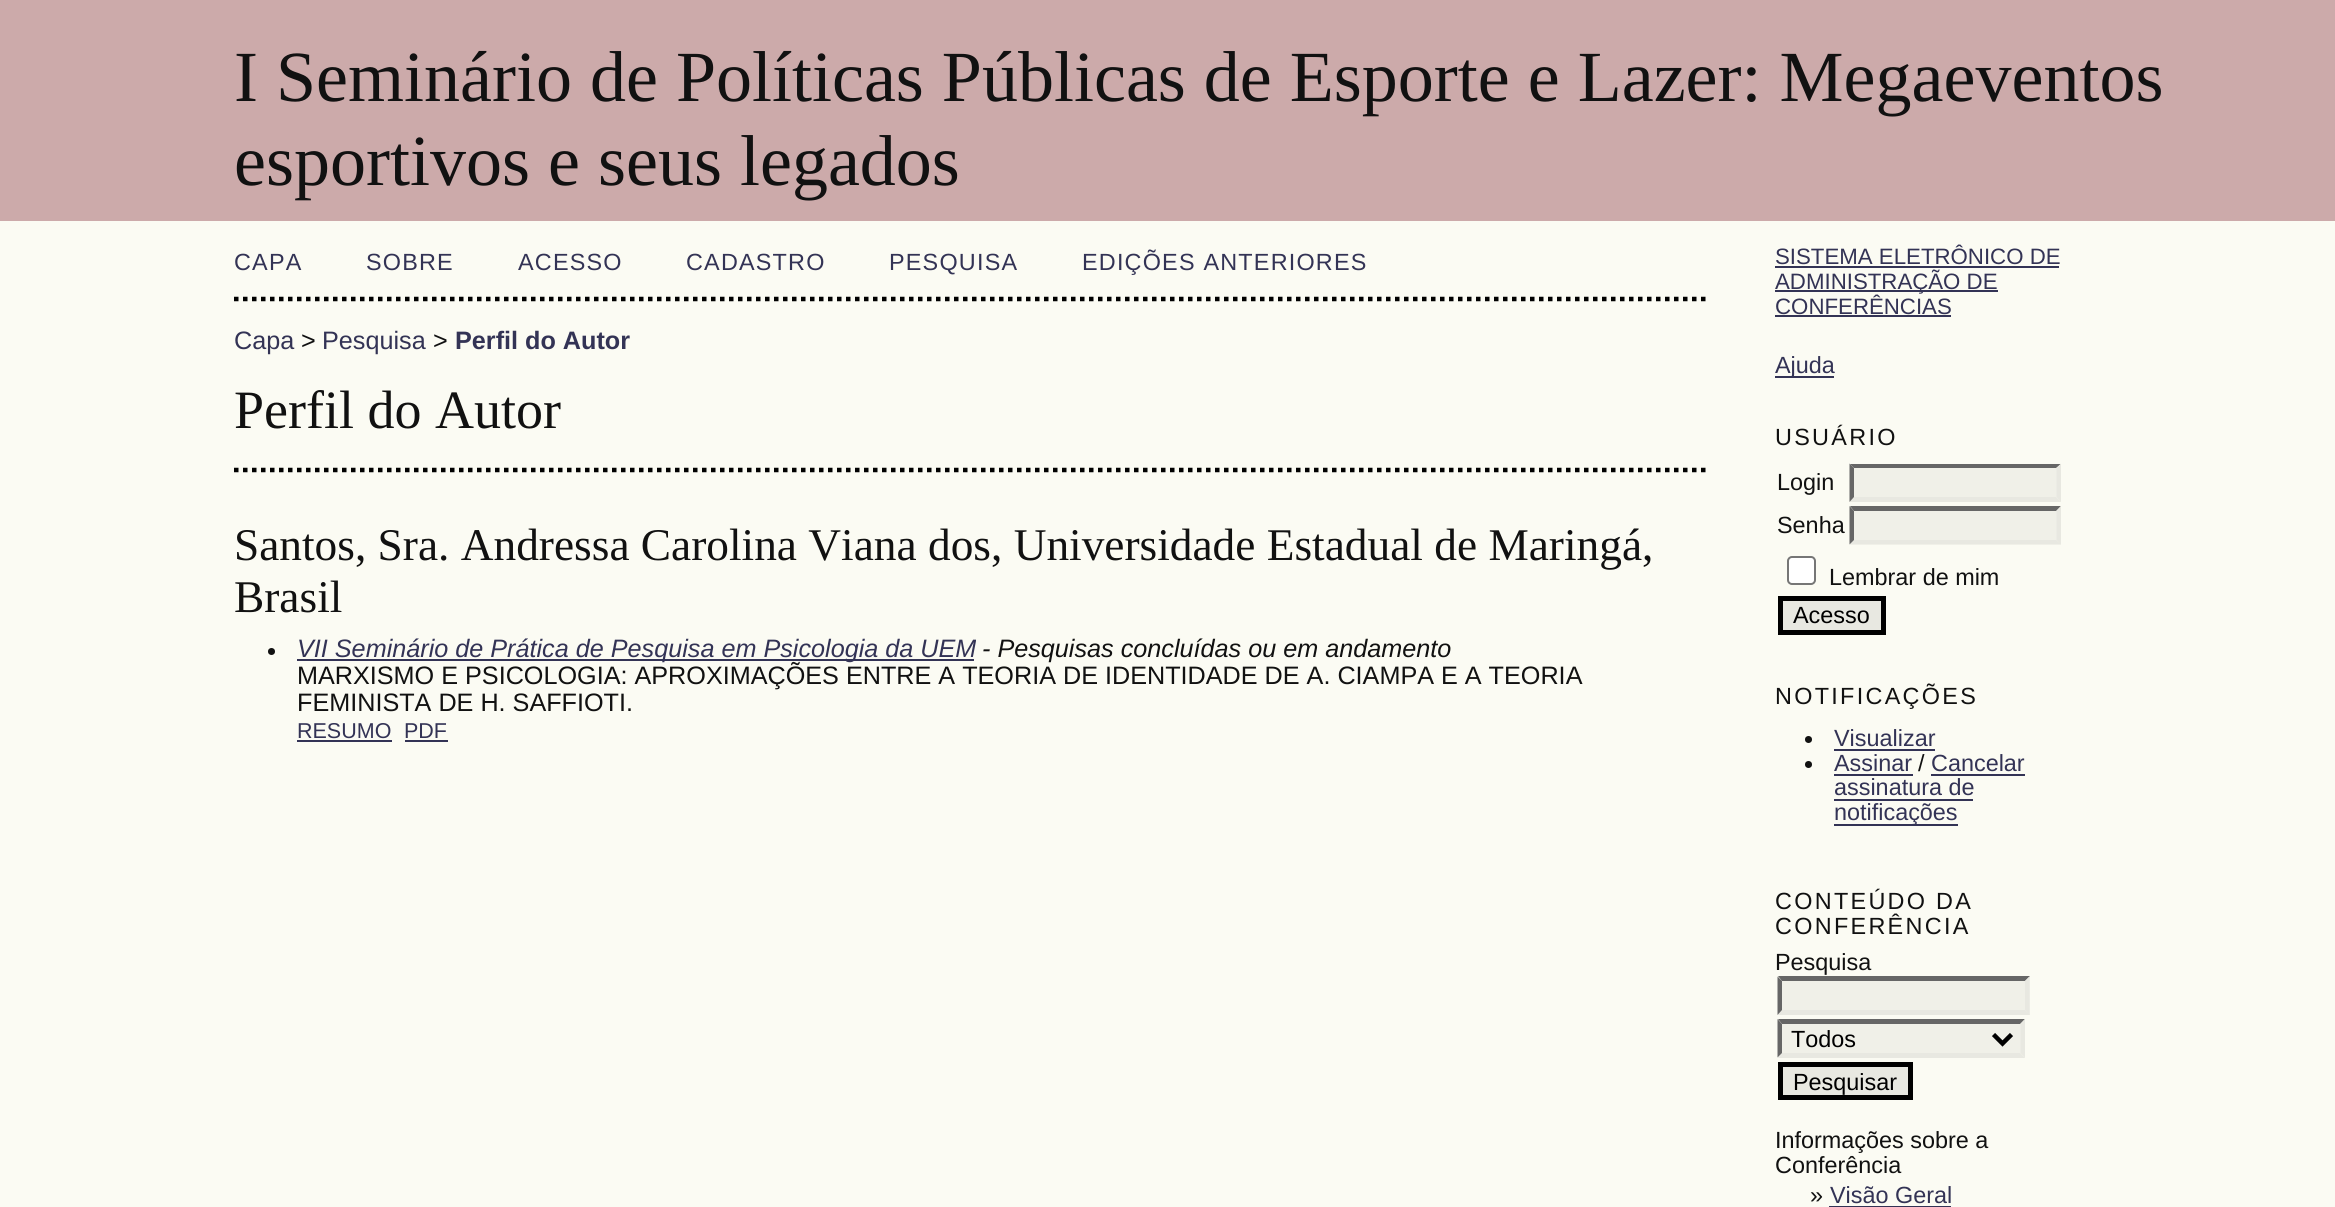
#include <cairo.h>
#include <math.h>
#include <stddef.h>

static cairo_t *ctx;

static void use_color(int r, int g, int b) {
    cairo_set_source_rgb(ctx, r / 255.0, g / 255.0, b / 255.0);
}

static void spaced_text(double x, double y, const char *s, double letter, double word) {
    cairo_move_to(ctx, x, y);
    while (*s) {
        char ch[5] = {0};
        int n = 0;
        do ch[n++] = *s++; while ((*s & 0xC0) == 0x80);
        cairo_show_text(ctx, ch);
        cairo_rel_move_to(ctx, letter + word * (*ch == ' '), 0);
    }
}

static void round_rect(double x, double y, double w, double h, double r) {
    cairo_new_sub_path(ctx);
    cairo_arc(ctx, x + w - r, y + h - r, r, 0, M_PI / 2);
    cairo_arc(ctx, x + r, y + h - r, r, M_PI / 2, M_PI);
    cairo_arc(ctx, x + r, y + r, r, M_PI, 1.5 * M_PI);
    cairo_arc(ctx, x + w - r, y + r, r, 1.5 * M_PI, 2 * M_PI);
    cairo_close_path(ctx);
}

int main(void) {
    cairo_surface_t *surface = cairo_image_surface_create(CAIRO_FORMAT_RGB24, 2335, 1207);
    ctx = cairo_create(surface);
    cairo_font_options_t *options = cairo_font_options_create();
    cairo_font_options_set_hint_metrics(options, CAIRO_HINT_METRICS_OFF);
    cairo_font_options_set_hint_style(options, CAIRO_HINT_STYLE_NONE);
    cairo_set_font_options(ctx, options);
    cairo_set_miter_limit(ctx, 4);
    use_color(251, 251, 243);
    cairo_paint(ctx);
    use_color(204, 170, 170);
    cairo_rectangle(ctx, 0, 0, 2335, 221);
    cairo_fill(ctx);
    cairo_select_font_face(ctx, "Liberation Serif", CAIRO_FONT_SLANT_NORMAL, CAIRO_FONT_WEIGHT_NORMAL);
    cairo_set_font_size(ctx, 72);
    use_color(17, 17, 17);
    cairo_move_to(ctx, 234, 101);
    cairo_show_text(ctx, "I Seminário de Políticas Públicas de Esporte e Lazer: Megaeventos");
    cairo_move_to(ctx, 234, 185);
    cairo_show_text(ctx, "esportivos e seus legados");
    cairo_new_path(ctx);
    cairo_move_to(ctx, 234, 299);
    cairo_line_to(ctx, 1705.5, 299);
    use_color(0, 0, 0);
    cairo_set_line_width(ctx, 4.5);
    cairo_set_dash(ctx, (double[]){4.5, 4.5}, 2, 0);
    cairo_stroke(ctx);
    cairo_select_font_face(ctx, "Liberation Sans", CAIRO_FONT_SLANT_NORMAL, CAIRO_FONT_WEIGHT_NORMAL);
    cairo_set_font_size(ctx, 23.4);
    use_color(51, 51, 85);
    spaced_text(234, 270, "CAPA", 1.2, 0);
    spaced_text(366, 270, "SOBRE", 1.2, 0);
    spaced_text(518, 270, "ACESSO", 1.2, 0);
    spaced_text(686, 270, "CADASTRO", 1.2, 0);
    spaced_text(889, 270, "PESQUISA", 1.2, 0);
    spaced_text(1082, 270, "EDIÇÕES ANTERIORES", 1.2, 0);
    cairo_set_font_size(ctx, 25.2);
    cairo_move_to(ctx, 234, 349);
    cairo_show_text(ctx, "Capa");
    use_color(17, 17, 17);
    cairo_move_to(ctx, 301, 349);
    cairo_show_text(ctx, ">");
    use_color(51, 51, 85);
    cairo_move_to(ctx, 322, 349);
    cairo_show_text(ctx, "Pesquisa");
    use_color(17, 17, 17);
    cairo_move_to(ctx, 433, 349);
    cairo_show_text(ctx, ">");
    cairo_select_font_face(ctx, "Liberation Sans", CAIRO_FONT_SLANT_NORMAL, CAIRO_FONT_WEIGHT_BOLD);
    use_color(51, 51, 85);
    cairo_move_to(ctx, 455, 349);
    cairo_show_text(ctx, "Perfil do Autor");
    cairo_select_font_face(ctx, "Liberation Serif", CAIRO_FONT_SLANT_NORMAL, CAIRO_FONT_WEIGHT_NORMAL);
    cairo_set_font_size(ctx, 54);
    use_color(17, 17, 17);
    cairo_move_to(ctx, 234, 428);
    cairo_show_text(ctx, "Perfil do Autor");
    cairo_new_path(ctx);
    cairo_move_to(ctx, 234, 470);
    cairo_line_to(ctx, 1705.5, 470);
    use_color(0, 0, 0);
    cairo_stroke(ctx);
    cairo_set_font_size(ctx, 45.35);
    use_color(17, 17, 17);
    cairo_move_to(ctx, 234, 560);
    cairo_show_text(ctx, "Santos, Sra. Andressa Carolina Viana dos, Universidade Estadual de Maringá,");
    cairo_move_to(ctx, 234, 612);
    cairo_show_text(ctx, "Brasil");
    cairo_new_path(ctx);
    cairo_arc(ctx, 271.5, 651.5, 3.5, 0, 2 * M_PI);
    cairo_fill(ctx);
    use_color(51, 51, 85);
    cairo_rectangle(ctx, 297, 659, 677, 2);
    cairo_fill(ctx);
    cairo_select_font_face(ctx, "Liberation Sans", CAIRO_FONT_SLANT_ITALIC, CAIRO_FONT_WEIGHT_NORMAL);
    cairo_set_font_size(ctx, 25.2);
    cairo_move_to(ctx, 297, 657);
    cairo_show_text(ctx, "VII Seminário de Prática de Pesquisa em Psicologia da UEM");
    use_color(17, 17, 17);
    cairo_move_to(ctx, 982, 657);
    cairo_show_text(ctx, "- Pesquisas concluídas ou em andamento");
    cairo_select_font_face(ctx, "Liberation Sans", CAIRO_FONT_SLANT_NORMAL, CAIRO_FONT_WEIGHT_NORMAL);
    cairo_move_to(ctx, 297, 684);
    cairo_show_text(ctx, "MARXISMO E PSICOLOGIA: APROXIMAÇÕES ENTRE A TEORIA DE IDENTIDADE DE A. CIAMPA E A TEORIA");
    cairo_move_to(ctx, 297, 711);
    cairo_show_text(ctx, "FEMINISTA DE H. SAFFIOTI.");
    cairo_set_font_size(ctx, 21.5);
    use_color(51, 51, 85);
    cairo_move_to(ctx, 297, 738);
    cairo_show_text(ctx, "RESUMO");
    cairo_rectangle(ctx, 297, 740, 95, 2);
    cairo_fill(ctx);
    cairo_move_to(ctx, 404, 738);
    cairo_show_text(ctx, "PDF");
    cairo_rectangle(ctx, 405, 740, 43, 2);
    cairo_fill(ctx);
    cairo_set_font_size(ctx, 22.25);
    cairo_move_to(ctx, 1775, 264);
    cairo_show_text(ctx, "SISTEMA ELETRÔNICO DE");
    cairo_rectangle(ctx, 1775, 266, 284, 2);
    cairo_fill(ctx);
    cairo_rectangle(ctx, 1775, 290, 223, 2);
    cairo_fill(ctx);
    cairo_move_to(ctx, 1775, 289);
    cairo_show_text(ctx, "ADMINISTRAÇÃO DE");
    cairo_move_to(ctx, 1775, 314);
    cairo_show_text(ctx, "CONFERÊNCIAS");
    cairo_rectangle(ctx, 1775, 315, 176, 2);
    cairo_fill(ctx);
    cairo_rectangle(ctx, 1775, 376, 59, 2);
    cairo_fill(ctx);
    cairo_set_font_size(ctx, 23.4);
    cairo_move_to(ctx, 1775, 373);
    cairo_show_text(ctx, "Ajuda");
    use_color(17, 17, 17);
    spaced_text(1775, 445, "USUÁRIO", 2.3, 0);
    cairo_move_to(ctx, 1777, 490);
    cairo_show_text(ctx, "Login");
    use_color(240, 240, 232);
    cairo_rectangle(ctx, 1850, 464, 211, 38);
    cairo_fill(ctx);
    use_color(102, 102, 102);
    cairo_new_path(ctx);
    cairo_move_to(ctx, 1850, 464);
    cairo_line_to(ctx, 2061, 464);
    cairo_line_to(ctx, 2056, 468);
    cairo_line_to(ctx, 1854, 468);
    cairo_close_path(ctx);
    cairo_fill(ctx);
    use_color(232, 232, 225);
    cairo_new_path(ctx);
    cairo_move_to(ctx, 2061, 463.5);
    cairo_line_to(ctx, 2061, 502);
    cairo_line_to(ctx, 2056.5, 497);
    cairo_line_to(ctx, 2056.5, 468);
    cairo_close_path(ctx);
    cairo_fill(ctx);
    cairo_new_path(ctx);
    cairo_move_to(ctx, 2061, 502);
    cairo_line_to(ctx, 1850, 502);
    cairo_line_to(ctx, 1854, 497);
    cairo_line_to(ctx, 2056, 497);
    cairo_close_path(ctx);
    cairo_fill(ctx);
    use_color(102, 102, 102);
    cairo_new_path(ctx);
    cairo_move_to(ctx, 1849.5, 502);
    cairo_line_to(ctx, 1849.5, 463.5);
    cairo_line_to(ctx, 1854, 468);
    cairo_line_to(ctx, 1854, 497);
    cairo_close_path(ctx);
    cairo_fill(ctx);
    use_color(17, 17, 17);
    cairo_move_to(ctx, 1777, 533);
    cairo_show_text(ctx, "Senha");
    use_color(240, 240, 232);
    cairo_rectangle(ctx, 1850, 506, 211, 39);
    cairo_fill(ctx);
    use_color(102, 102, 102);
    cairo_new_path(ctx);
    cairo_move_to(ctx, 1850, 506);
    cairo_line_to(ctx, 2061, 506);
    cairo_line_to(ctx, 2056, 511);
    cairo_line_to(ctx, 1854, 511);
    cairo_close_path(ctx);
    cairo_fill(ctx);
    use_color(232, 232, 225);
    cairo_new_path(ctx);
    cairo_move_to(ctx, 2061, 506);
    cairo_line_to(ctx, 2061, 544.5);
    cairo_line_to(ctx, 2056.5, 540);
    cairo_line_to(ctx, 2056.5, 511);
    cairo_close_path(ctx);
    cairo_fill(ctx);
    cairo_new_path(ctx);
    cairo_move_to(ctx, 2061, 544);
    cairo_line_to(ctx, 1850, 544);
    cairo_line_to(ctx, 1854, 540);
    cairo_line_to(ctx, 2056, 540);
    cairo_close_path(ctx);
    cairo_fill(ctx);
    use_color(102, 102, 102);
    cairo_new_path(ctx);
    cairo_move_to(ctx, 1849.5, 544.5);
    cairo_line_to(ctx, 1849.5, 506);
    cairo_line_to(ctx, 1854, 511);
    cairo_line_to(ctx, 1854, 540);
    cairo_close_path(ctx);
    cairo_fill(ctx);
    use_color(255, 255, 255);
    round_rect(1788, 557, 27, 27, 4);
    cairo_fill_preserve(ctx);
    use_color(118, 118, 118);
    cairo_set_line_width(ctx, 2);
    cairo_set_dash(ctx, NULL, 0, 0);
    cairo_stroke(ctx);
    use_color(17, 17, 17);
    cairo_move_to(ctx, 1829, 585);
    cairo_show_text(ctx, "Lembrar de mim");
    use_color(232, 232, 225);
    cairo_rectangle(ctx, 1780.5, 598.5, 103, 34);
    cairo_fill_preserve(ctx);
    use_color(0, 0, 0);
    cairo_set_line_width(ctx, 5);
    cairo_stroke(ctx);
    cairo_move_to(ctx, 1793, 623);
    cairo_show_text(ctx, "Acesso");
    use_color(17, 17, 17);
    spaced_text(1775, 704, "NOTIFICAÇÕES", 2.3, 0);
    cairo_new_path(ctx);
    cairo_arc(ctx, 1808.5, 739.5, 3.5, 0, 2 * M_PI);
    cairo_fill(ctx);
    use_color(51, 51, 85);
    cairo_move_to(ctx, 1834, 746);
    cairo_show_text(ctx, "Visualizar");
    cairo_rectangle(ctx, 1834, 749, 101, 2);
    cairo_fill(ctx);
    use_color(17, 17, 17);
    cairo_arc(ctx, 1808.5, 764.5, 3.5, 0, 2 * M_PI);
    cairo_fill(ctx);
    use_color(51, 51, 85);
    cairo_move_to(ctx, 1834, 771);
    cairo_show_text(ctx, "Assinar");
    cairo_rectangle(ctx, 1834, 774, 79, 2);
    cairo_fill(ctx);
    use_color(17, 17, 17);
    cairo_move_to(ctx, 1918, 771);
    cairo_show_text(ctx, "/");
    use_color(51, 51, 85);
    cairo_move_to(ctx, 1931, 771);
    cairo_show_text(ctx, "Cancelar");
    cairo_rectangle(ctx, 1931, 774, 94, 2);
    cairo_fill(ctx);
    cairo_move_to(ctx, 1834, 795);
    cairo_show_text(ctx, "assinatura de");
    cairo_rectangle(ctx, 1834, 799, 139, 2);
    cairo_fill(ctx);
    cairo_rectangle(ctx, 1834, 824, 124, 2);
    cairo_fill(ctx);
    cairo_move_to(ctx, 1834, 820);
    cairo_show_text(ctx, "notificações");
    use_color(17, 17, 17);
    spaced_text(1775, 909, "CONTEÚDO DA", 2.3, 0);
    spaced_text(1775, 934, "CONFERÊNCIA", 2.3, 0);
    cairo_move_to(ctx, 1775, 970);
    cairo_show_text(ctx, "Pesquisa");
    use_color(240, 240, 232);
    cairo_rectangle(ctx, 1778, 977, 252, 38);
    cairo_fill(ctx);
    use_color(102, 102, 102);
    cairo_new_path(ctx);
    cairo_move_to(ctx, 1778, 976);
    cairo_line_to(ctx, 2030, 976);
    cairo_line_to(ctx, 2025, 981);
    cairo_line_to(ctx, 1782, 981);
    cairo_close_path(ctx);
    cairo_fill(ctx);
    use_color(232, 232, 225);
    cairo_new_path(ctx);
    cairo_move_to(ctx, 2029.5, 976.5);
    cairo_line_to(ctx, 2029.5, 1015);
    cairo_line_to(ctx, 2025, 1010);
    cairo_line_to(ctx, 2025, 981);
    cairo_close_path(ctx);
    cairo_fill(ctx);
    cairo_new_path(ctx);
    cairo_move_to(ctx, 2030, 1015);
    cairo_line_to(ctx, 1778, 1015);
    cairo_line_to(ctx, 1782, 1010);
    cairo_line_to(ctx, 2025, 1010);
    cairo_close_path(ctx);
    cairo_fill(ctx);
    use_color(102, 102, 102);
    cairo_new_path(ctx);
    cairo_move_to(ctx, 1777.5, 1015);
    cairo_line_to(ctx, 1777.5, 976.5);
    cairo_line_to(ctx, 1782, 981);
    cairo_line_to(ctx, 1782, 1010);
    cairo_close_path(ctx);
    cairo_fill(ctx);
    use_color(240, 240, 232);
    cairo_rectangle(ctx, 1778, 1019, 247, 39);
    cairo_fill(ctx);
    use_color(102, 102, 102);
    cairo_new_path(ctx);
    cairo_move_to(ctx, 1778, 1019);
    cairo_line_to(ctx, 2025, 1019);
    cairo_line_to(ctx, 2020, 1024);
    cairo_line_to(ctx, 1782, 1024);
    cairo_close_path(ctx);
    cairo_fill(ctx);
    use_color(232, 232, 225);
    cairo_new_path(ctx);
    cairo_move_to(ctx, 2025, 1019);
    cairo_line_to(ctx, 2025, 1057.5);
    cairo_line_to(ctx, 2020.5, 1053);
    cairo_line_to(ctx, 2020.5, 1024);
    cairo_close_path(ctx);
    cairo_fill(ctx);
    cairo_new_path(ctx);
    cairo_move_to(ctx, 2025, 1058);
    cairo_line_to(ctx, 1778, 1058);
    cairo_line_to(ctx, 1782, 1053);
    cairo_line_to(ctx, 2020, 1053);
    cairo_close_path(ctx);
    cairo_fill(ctx);
    use_color(102, 102, 102);
    cairo_new_path(ctx);
    cairo_move_to(ctx, 1777.5, 1057.5);
    cairo_line_to(ctx, 1777.5, 1019);
    cairo_line_to(ctx, 1782, 1024);
    cairo_line_to(ctx, 1782, 1053);
    cairo_close_path(ctx);
    cairo_fill(ctx);
    cairo_new_path(ctx);
    cairo_move_to(ctx, 1993.5, 1034.5);
    cairo_line_to(ctx, 2002.5, 1043.5);
    cairo_line_to(ctx, 2011.5, 1034.5);
    use_color(0, 0, 0);
    cairo_set_line_width(ctx, 4.5);
    cairo_stroke(ctx);
    cairo_move_to(ctx, 1791, 1047);
    cairo_show_text(ctx, "Todos");
    use_color(232, 232, 225);
    cairo_rectangle(ctx, 1780.5, 1064.5, 130, 33);
    cairo_fill_preserve(ctx);
    use_color(0, 0, 0);
    cairo_set_line_width(ctx, 5);
    cairo_stroke(ctx);
    cairo_move_to(ctx, 1793, 1090);
    cairo_show_text(ctx, "Pesquisar");
    use_color(17, 17, 17);
    cairo_move_to(ctx, 1775, 1148);
    cairo_show_text(ctx, "Informações sobre a");
    cairo_move_to(ctx, 1775, 1173);
    cairo_show_text(ctx, "Conferência");
    cairo_move_to(ctx, 1810, 1203);
    cairo_show_text(ctx, "»");
    use_color(51, 51, 85);
    cairo_move_to(ctx, 1830, 1203);
    cairo_show_text(ctx, "Visão Geral");
    cairo_rectangle(ctx, 1829, 1206, 122, 1);
    cairo_fill(ctx);
    cairo_surface_write_to_png(surface, "result.png");
    cairo_font_options_destroy(options);
    cairo_destroy(ctx);
    cairo_surface_destroy(surface);
    return 0;
}
